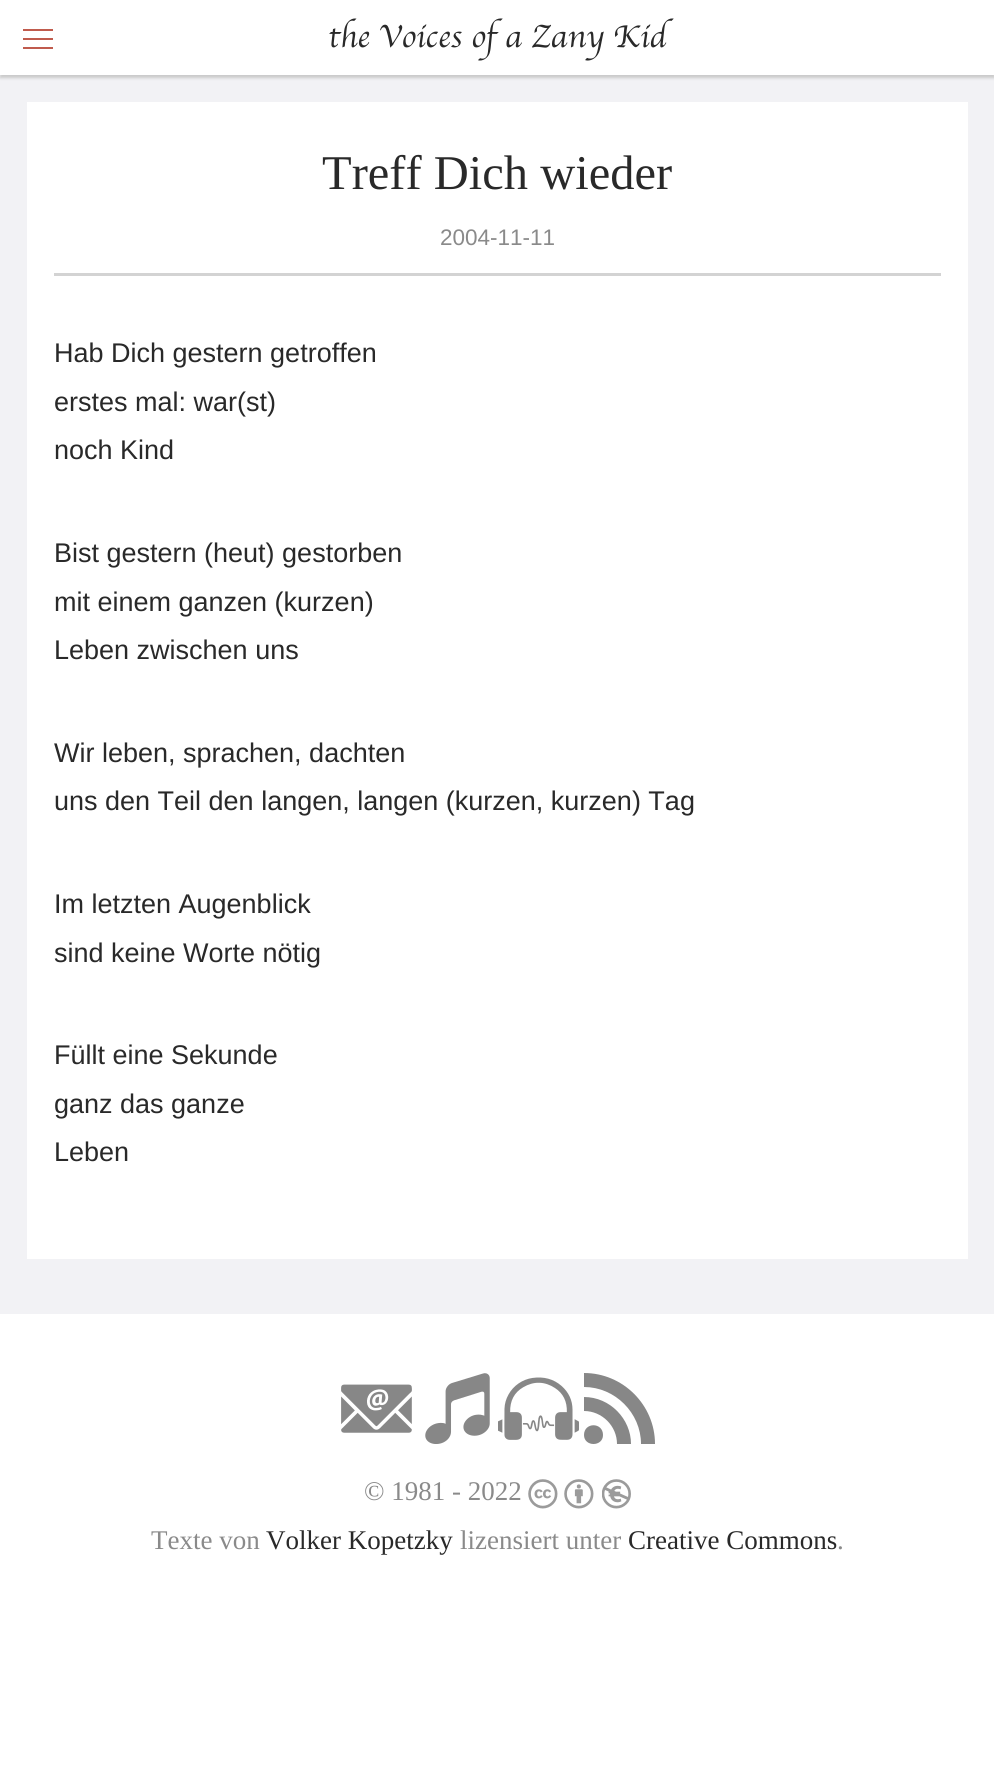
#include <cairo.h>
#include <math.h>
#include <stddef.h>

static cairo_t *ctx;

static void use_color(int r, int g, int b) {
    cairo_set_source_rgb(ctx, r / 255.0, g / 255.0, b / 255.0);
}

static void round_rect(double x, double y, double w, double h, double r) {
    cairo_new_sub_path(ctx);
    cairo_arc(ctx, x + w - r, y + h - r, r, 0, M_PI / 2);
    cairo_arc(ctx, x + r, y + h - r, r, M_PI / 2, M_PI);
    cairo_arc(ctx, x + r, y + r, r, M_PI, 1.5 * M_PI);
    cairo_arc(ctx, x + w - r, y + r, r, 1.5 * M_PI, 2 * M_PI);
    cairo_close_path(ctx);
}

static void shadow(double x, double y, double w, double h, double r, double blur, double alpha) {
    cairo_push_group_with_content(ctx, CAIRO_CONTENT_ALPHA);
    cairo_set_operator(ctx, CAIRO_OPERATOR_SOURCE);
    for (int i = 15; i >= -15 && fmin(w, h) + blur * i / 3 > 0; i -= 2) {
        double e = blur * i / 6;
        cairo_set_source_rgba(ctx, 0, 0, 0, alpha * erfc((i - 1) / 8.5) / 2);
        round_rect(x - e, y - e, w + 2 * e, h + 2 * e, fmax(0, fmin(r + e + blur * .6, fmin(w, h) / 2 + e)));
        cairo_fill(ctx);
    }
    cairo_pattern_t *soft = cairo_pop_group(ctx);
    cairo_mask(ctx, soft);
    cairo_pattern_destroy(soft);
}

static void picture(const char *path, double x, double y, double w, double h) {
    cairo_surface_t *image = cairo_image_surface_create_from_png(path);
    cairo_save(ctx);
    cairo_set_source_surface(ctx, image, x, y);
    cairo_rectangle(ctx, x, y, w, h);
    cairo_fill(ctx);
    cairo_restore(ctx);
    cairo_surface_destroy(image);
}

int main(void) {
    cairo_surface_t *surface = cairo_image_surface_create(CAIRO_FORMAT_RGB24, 994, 1785);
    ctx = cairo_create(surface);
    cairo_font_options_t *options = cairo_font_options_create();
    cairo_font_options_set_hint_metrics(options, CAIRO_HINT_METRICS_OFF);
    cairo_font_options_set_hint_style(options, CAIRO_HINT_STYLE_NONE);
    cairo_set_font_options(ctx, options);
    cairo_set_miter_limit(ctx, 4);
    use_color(255, 255, 255);
    cairo_paint(ctx);
    use_color(242, 242, 245);
    cairo_rectangle(ctx, 0, 75, 994, 1239);
    cairo_fill(ctx);
    cairo_save(ctx);
    cairo_rectangle(ctx, 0, 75, 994, 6);
    cairo_clip(ctx);
    use_color(202, 202, 202);
    shadow(0, 3, 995, 75, 0, 1.5, 1);
    cairo_restore(ctx);
    use_color(192, 91, 77);
    cairo_rectangle(ctx, 23, 29, 30, 2);
    cairo_fill(ctx);
    cairo_rectangle(ctx, 23, 38, 30, 2);
    cairo_fill(ctx);
    cairo_rectangle(ctx, 23, 47, 30, 2);
    cairo_fill(ctx);
    cairo_select_font_face(ctx, "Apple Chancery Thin", CAIRO_FONT_SLANT_NORMAL, CAIRO_FONT_WEIGHT_NORMAL);
    cairo_set_font_size(ctx, 33);
    use_color(41, 41, 41);
    cairo_move_to(ctx, 328, 47);
    cairo_show_text(ctx, "the Voices of a Zany Kid");
    use_color(255, 255, 255);
    cairo_rectangle(ctx, 27, 102, 941, 1157);
    cairo_fill(ctx);
    use_color(211, 211, 211);
    cairo_rectangle(ctx, 54, 273, 887, 3);
    cairo_fill(ctx);
    cairo_select_font_face(ctx, "Liberation Serif", CAIRO_FONT_SLANT_NORMAL, CAIRO_FONT_WEIGHT_NORMAL);
    cairo_set_font_size(ctx, 48.5);
    use_color(41, 41, 41);
    cairo_move_to(ctx, 322, 189);
    cairo_show_text(ctx, "Treff Dich wieder");
    cairo_select_font_face(ctx, "Liberation Sans", CAIRO_FONT_SLANT_NORMAL, CAIRO_FONT_WEIGHT_NORMAL);
    cairo_set_font_size(ctx, 22.5);
    use_color(138, 138, 138);
    cairo_move_to(ctx, 440, 245);
    cairo_show_text(ctx, "2004-11-11");
    cairo_set_font_size(ctx, 27);
    use_color(41, 41, 41);
    cairo_move_to(ctx, 54, 362);
    cairo_show_text(ctx, "Hab Dich gestern getroffen");
    cairo_move_to(ctx, 54, 411);
    cairo_show_text(ctx, "erstes mal: war(st)");
    cairo_move_to(ctx, 54, 459);
    cairo_show_text(ctx, "noch Kind");
    cairo_move_to(ctx, 54, 562);
    cairo_show_text(ctx, "Bist gestern (heut) gestorben");
    cairo_move_to(ctx, 54, 611);
    cairo_show_text(ctx, "mit einem ganzen (kurzen)");
    cairo_move_to(ctx, 54, 659);
    cairo_show_text(ctx, "Leben zwischen uns");
    cairo_move_to(ctx, 54, 762);
    cairo_show_text(ctx, "Wir leben, sprachen, dachten");
    cairo_move_to(ctx, 54, 810);
    cairo_show_text(ctx, "uns den Teil den langen, langen (kurzen, kurzen) Tag");
    cairo_move_to(ctx, 54, 913);
    cairo_show_text(ctx, "Im letzten Augenblick");
    cairo_move_to(ctx, 54, 962);
    cairo_show_text(ctx, "sind keine Worte nötig");
    cairo_move_to(ctx, 54, 1064);
    cairo_show_text(ctx, "Füllt eine Sekunde");
    cairo_move_to(ctx, 54, 1113);
    cairo_show_text(ctx, "ganz das ganze");
    cairo_move_to(ctx, 54, 1161);
    cairo_show_text(ctx, "Leben");
    picture("img1.png", 341, 1384, 71, 49);
    picture("img2.png", 425, 1373, 65, 71);
    picture("img3.png", 498, 1377, 81, 63);
    use_color(135, 135, 135);
    cairo_new_path(ctx);
    cairo_move_to(ctx, 584, 1411);
    cairo_curve_to(ctx, 602, 1411, 617, 1426, 617, 1444);
    cairo_line_to(ctx, 631, 1444);
    cairo_curve_to(ctx, 631, 1419, 610, 1397, 584, 1397);
    cairo_close_path(ctx);
    cairo_move_to(ctx, 584, 1387);
    cairo_curve_to(ctx, 615, 1387, 641, 1413, 641, 1444);
    cairo_line_to(ctx, 655, 1444);
    cairo_curve_to(ctx, 655, 1405, 623, 1373, 584, 1373);
    cairo_close_path(ctx);
    cairo_move_to(ctx, 603, 1435);
    cairo_curve_to(ctx, 603, 1447, 584, 1447, 584, 1435);
    cairo_curve_to(ctx, 584, 1422, 603, 1422, 603, 1435);
    cairo_close_path(ctx);
    cairo_fill(ctx);
    cairo_select_font_face(ctx, "Liberation Serif", CAIRO_FONT_SLANT_NORMAL, CAIRO_FONT_WEIGHT_NORMAL);
    use_color(138, 138, 138);
    cairo_move_to(ctx, 364, 1500);
    cairo_show_text(ctx, "© 1981 - 2022");
    picture("img4.png", 528, 1479, 30, 30);
    picture("img5.png", 564, 1479, 30, 30);
    picture("img6.png", 602, 1479, 29, 30);
    cairo_move_to(ctx, 151, 1549);
    cairo_show_text(ctx, "Texte von");
    use_color(41, 41, 41);
    cairo_move_to(ctx, 266, 1549);
    cairo_show_text(ctx, "Volker Kopetzky");
    use_color(138, 138, 138);
    cairo_move_to(ctx, 460, 1549);
    cairo_show_text(ctx, "lizensiert unter");
    use_color(41, 41, 41);
    cairo_move_to(ctx, 628, 1549);
    cairo_show_text(ctx, "Creative Commons");
    use_color(138, 138, 138);
    cairo_move_to(ctx, 837, 1549);
    cairo_show_text(ctx, ".");
    cairo_surface_write_to_png(surface, "result.png");
    cairo_font_options_destroy(options);
    cairo_destroy(ctx);
    cairo_surface_destroy(surface);
    return 0;
}
